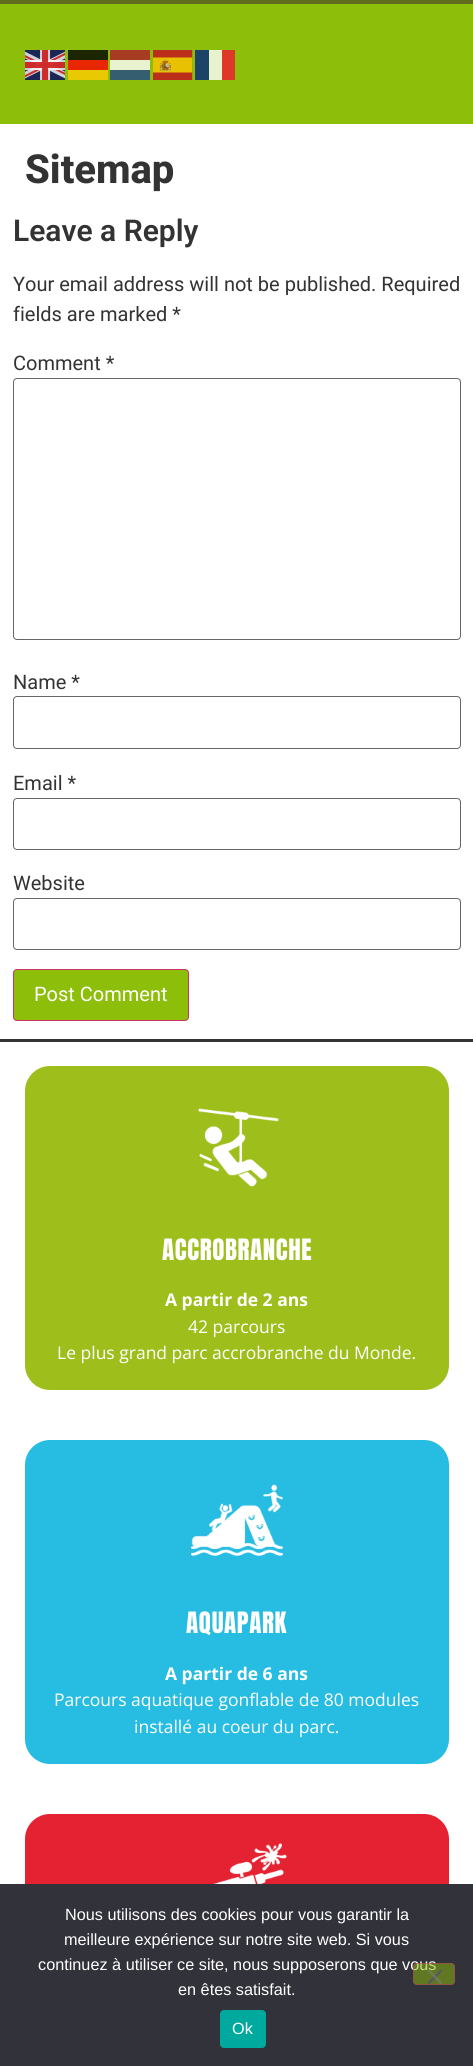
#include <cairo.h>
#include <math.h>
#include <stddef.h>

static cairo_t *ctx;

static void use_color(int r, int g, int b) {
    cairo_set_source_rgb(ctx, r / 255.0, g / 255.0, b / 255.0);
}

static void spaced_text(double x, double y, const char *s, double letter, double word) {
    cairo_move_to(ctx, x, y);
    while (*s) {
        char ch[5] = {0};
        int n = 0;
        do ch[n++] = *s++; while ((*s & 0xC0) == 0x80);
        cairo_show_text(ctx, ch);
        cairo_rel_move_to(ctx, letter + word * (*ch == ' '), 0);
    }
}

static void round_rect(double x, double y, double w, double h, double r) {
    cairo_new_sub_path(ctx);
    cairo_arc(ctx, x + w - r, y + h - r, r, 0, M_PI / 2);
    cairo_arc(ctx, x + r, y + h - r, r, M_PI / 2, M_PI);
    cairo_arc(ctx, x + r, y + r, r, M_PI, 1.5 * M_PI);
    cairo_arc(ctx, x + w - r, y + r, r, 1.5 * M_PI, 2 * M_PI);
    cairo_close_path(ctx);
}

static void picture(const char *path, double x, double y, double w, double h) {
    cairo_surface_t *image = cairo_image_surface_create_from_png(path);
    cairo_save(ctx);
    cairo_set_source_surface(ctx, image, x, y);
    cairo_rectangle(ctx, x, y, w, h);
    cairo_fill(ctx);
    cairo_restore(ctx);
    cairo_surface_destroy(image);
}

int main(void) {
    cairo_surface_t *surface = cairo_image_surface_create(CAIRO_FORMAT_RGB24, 473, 2066);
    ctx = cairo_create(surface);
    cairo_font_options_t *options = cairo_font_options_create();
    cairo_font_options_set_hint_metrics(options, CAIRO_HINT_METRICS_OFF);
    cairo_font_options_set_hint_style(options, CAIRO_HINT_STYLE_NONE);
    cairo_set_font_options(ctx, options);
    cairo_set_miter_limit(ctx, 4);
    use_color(255, 255, 255);
    cairo_paint(ctx);
    use_color(140, 190, 10);
    cairo_rectangle(ctx, 0, 4, 473, 120);
    cairo_fill(ctx);
    use_color(95, 108, 30);
    cairo_rectangle(ctx, 0, 0, 473, 4);
    cairo_fill(ctx);
    picture("img1.png", 25, 50, 40, 30);
    use_color(28, 38, 2);
    cairo_rectangle(ctx, 68, 50, 40, 10);
    cairo_fill(ctx);
    use_color(167, 60, 34);
    cairo_rectangle(ctx, 110, 50, 40, 10);
    cairo_fill(ctx);
    picture("img2.png", 153, 50, 40, 30);
    use_color(28, 68, 104);
    cairo_rectangle(ctx, 195, 50, 14, 30);
    cairo_fill(ctx);
    use_color(232, 242, 206);
    cairo_rectangle(ctx, 209, 50, 13, 30);
    cairo_fill(ctx);
    use_color(222, 57, 40);
    cairo_rectangle(ctx, 222, 50, 13, 30);
    cairo_fill(ctx);
    use_color(232, 38, 2);
    cairo_rectangle(ctx, 68, 60, 40, 10);
    cairo_fill(ctx);
    use_color(232, 242, 206);
    cairo_rectangle(ctx, 110, 60, 40, 10);
    cairo_fill(ctx);
    use_color(232, 201, 2);
    cairo_rectangle(ctx, 68, 70, 40, 10);
    cairo_fill(ctx);
    use_color(54, 94, 113);
    cairo_rectangle(ctx, 110, 70, 40, 10);
    cairo_fill(ctx);
    cairo_select_font_face(ctx, "Roboto ExtraBold", CAIRO_FONT_SLANT_NORMAL, CAIRO_FONT_WEIGHT_NORMAL);
    cairo_set_font_size(ctx, 40);
    use_color(51, 51, 51);
    cairo_move_to(ctx, 25, 183);
    cairo_show_text(ctx, "Sitemap");
    cairo_select_font_face(ctx, "Roboto SemiBold", CAIRO_FONT_SLANT_NORMAL, CAIRO_FONT_WEIGHT_NORMAL);
    cairo_set_font_size(ctx, 30);
    cairo_move_to(ctx, 13, 241);
    cairo_show_text(ctx, "Leave a Reply");
    cairo_select_font_face(ctx, "Roboto", CAIRO_FONT_SLANT_NORMAL, CAIRO_FONT_WEIGHT_NORMAL);
    cairo_set_font_size(ctx, 20);
    cairo_move_to(ctx, 13, 291);
    cairo_show_text(ctx, "Your email address will not be published. Required");
    cairo_move_to(ctx, 13, 321);
    cairo_show_text(ctx, "fields are marked *");
    cairo_move_to(ctx, 13, 370);
    cairo_show_text(ctx, "Comment *");
    round_rect(13.5, 378.5, 447, 261, 3.5);
    use_color(102, 102, 102);
    cairo_set_line_width(ctx, 1);
    cairo_stroke(ctx);
    use_color(51, 51, 51);
    cairo_move_to(ctx, 13, 689);
    cairo_show_text(ctx, "Name *");
    round_rect(13.5, 696.5, 447, 52, 3.5);
    use_color(102, 102, 102);
    cairo_stroke(ctx);
    use_color(51, 51, 51);
    cairo_move_to(ctx, 13, 790);
    cairo_show_text(ctx, "Email *");
    round_rect(13.5, 798.5, 447, 51, 3.5);
    use_color(102, 102, 102);
    cairo_stroke(ctx);
    use_color(51, 51, 51);
    cairo_move_to(ctx, 13, 890);
    cairo_show_text(ctx, "Website");
    round_rect(13.5, 898.5, 447, 51, 3.5);
    use_color(102, 102, 102);
    cairo_stroke(ctx);
    use_color(140, 190, 10);
    round_rect(13.5, 969.5, 175, 51, 3.5);
    cairo_fill_preserve(ctx);
    use_color(204, 51, 102);
    cairo_stroke(ctx);
    use_color(255, 255, 255);
    cairo_move_to(ctx, 34, 1001);
    cairo_show_text(ctx, "Post Comment");
    use_color(51, 51, 51);
    cairo_rectangle(ctx, 0, 1039, 473, 3);
    cairo_fill(ctx);
    use_color(158, 190, 28);
    round_rect(25, 1066, 424, 324, 25);
    cairo_fill(ctx);
    picture("img3.png", 198, 1108, 81, 79);
    cairo_select_font_face(ctx, "Anton", CAIRO_FONT_SLANT_NORMAL, CAIRO_FONT_WEIGHT_NORMAL);
    cairo_set_font_size(ctx, 25);
    use_color(255, 255, 255);
    spaced_text(162, 1260, "ACCROBRANCHE", 0.6, 0);
    cairo_select_font_face(ctx, "Open Sans", CAIRO_FONT_SLANT_NORMAL, CAIRO_FONT_WEIGHT_BOLD);
    cairo_set_font_size(ctx, 17.5);
    cairo_move_to(ctx, 165, 1306);
    cairo_show_text(ctx, "A partir de 2 ans");
    cairo_select_font_face(ctx, "Open Sans", CAIRO_FONT_SLANT_NORMAL, CAIRO_FONT_WEIGHT_NORMAL);
    cairo_move_to(ctx, 188, 1333);
    cairo_show_text(ctx, "42 parcours");
    cairo_move_to(ctx, 57, 1359);
    cairo_show_text(ctx, "Le plus grand parc accrobranche du Monde.");
    use_color(39, 188, 225);
    round_rect(25, 1440, 424, 324, 25);
    cairo_fill(ctx);
    picture("img4.png", 190, 1484, 94, 72);
    cairo_select_font_face(ctx, "Anton", CAIRO_FONT_SLANT_NORMAL, CAIRO_FONT_WEIGHT_NORMAL);
    cairo_set_font_size(ctx, 25);
    use_color(255, 255, 255);
    spaced_text(186, 1633, "AQUAPARK", 0.6, 0);
    cairo_select_font_face(ctx, "Open Sans", CAIRO_FONT_SLANT_NORMAL, CAIRO_FONT_WEIGHT_BOLD);
    cairo_set_font_size(ctx, 17.5);
    cairo_move_to(ctx, 165, 1680);
    cairo_show_text(ctx, "A partir de 6 ans");
    cairo_select_font_face(ctx, "Open Sans", CAIRO_FONT_SLANT_NORMAL, CAIRO_FONT_WEIGHT_NORMAL);
    cairo_move_to(ctx, 54, 1706);
    cairo_show_text(ctx, "Parcours aquatique gonflable de 80 modules");
    cairo_move_to(ctx, 134, 1733);
    cairo_show_text(ctx, "installé au coeur du parc.");
    use_color(229, 34, 50);
    round_rect(25, 1814, 424, 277, 25);
    cairo_fill(ctx);
    picture("img5.png", 212, 1843, 75, 41);
    use_color(50, 50, 58);
    cairo_rectangle(ctx, 0, 1884, 473, 182);
    cairo_fill(ctx);
    cairo_select_font_face(ctx, "Liberation Sans", CAIRO_FONT_SLANT_NORMAL, CAIRO_FONT_WEIGHT_NORMAL);
    cairo_set_font_size(ctx, 16.25);
    use_color(255, 255, 255);
    cairo_move_to(ctx, 65, 1920);
    cairo_show_text(ctx, "Nous utilisons des cookies pour vous garantir la");
    cairo_move_to(ctx, 64, 1945);
    cairo_show_text(ctx, "meilleure expérience sur notre site web. Si vous");
    cairo_move_to(ctx, 38, 1970);
    cairo_show_text(ctx, "continuez à utiliser ce site, nous supposerons que vous");
    cairo_move_to(ctx, 178, 1995);
    cairo_show_text(ctx, "en êtes satisfait.");
    cairo_set_source_rgba(ctx, 0.549, 0.745, 0.039, 0.5);
    round_rect(413, 1963, 42, 22, 4);
    cairo_fill(ctx);
    round_rect(413.5, 1963.5, 41, 21, 3.5);
    cairo_set_source_rgba(ctx, 0.8, 0.2, 0.4, 0.5);
    cairo_stroke(ctx);
    use_color(89, 89, 93);
    cairo_new_path(ctx);
    cairo_move_to(ctx, 440.5, 1969.5);
    cairo_line_to(ctx, 442.5, 1971);
    cairo_line_to(ctx, 429.5, 1984.5);
    cairo_line_to(ctx, 427.5, 1982.5);
    cairo_close_path(ctx);
    cairo_fill(ctx);
    cairo_set_source_rgba(ctx, 0.502, 0.502, 0.502, 0.5);
    cairo_new_path(ctx);
    cairo_move_to(ctx, 427.5, 1971);
    cairo_line_to(ctx, 429.5, 1969.5);
    cairo_line_to(ctx, 442.5, 1982.5);
    cairo_line_to(ctx, 440.5, 1984.5);
    cairo_close_path(ctx);
    cairo_fill(ctx);
    use_color(0, 169, 157);
    round_rect(220, 2010, 46, 38, 4);
    cairo_fill(ctx);
    use_color(255, 255, 255);
    cairo_move_to(ctx, 232, 2034);
    cairo_show_text(ctx, "Ok");
    cairo_surface_write_to_png(surface, "result.png");
    cairo_font_options_destroy(options);
    cairo_destroy(ctx);
    cairo_surface_destroy(surface);
    return 0;
}
